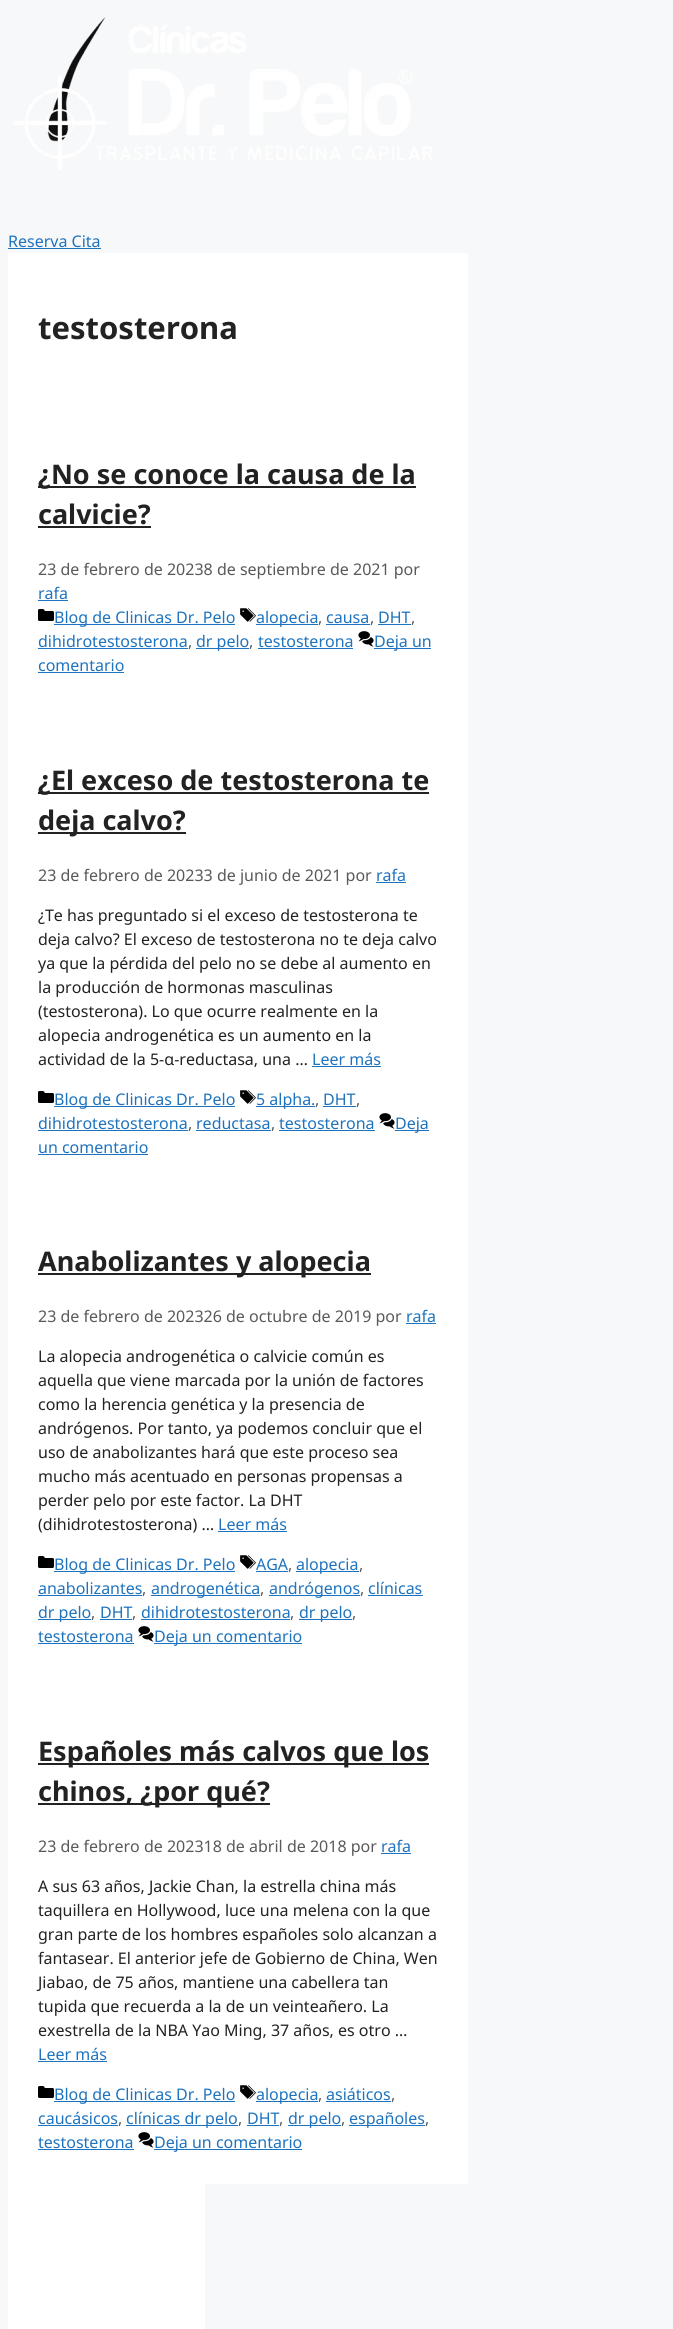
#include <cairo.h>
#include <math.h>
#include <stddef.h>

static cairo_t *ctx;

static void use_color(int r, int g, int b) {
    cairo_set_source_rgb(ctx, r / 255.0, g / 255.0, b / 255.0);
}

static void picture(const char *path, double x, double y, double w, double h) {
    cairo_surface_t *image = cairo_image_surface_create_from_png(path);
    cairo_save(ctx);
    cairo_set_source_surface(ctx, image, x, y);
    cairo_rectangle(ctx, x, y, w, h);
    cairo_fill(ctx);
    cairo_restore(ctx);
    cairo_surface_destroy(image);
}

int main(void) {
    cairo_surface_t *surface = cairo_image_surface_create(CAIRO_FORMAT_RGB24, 673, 2329);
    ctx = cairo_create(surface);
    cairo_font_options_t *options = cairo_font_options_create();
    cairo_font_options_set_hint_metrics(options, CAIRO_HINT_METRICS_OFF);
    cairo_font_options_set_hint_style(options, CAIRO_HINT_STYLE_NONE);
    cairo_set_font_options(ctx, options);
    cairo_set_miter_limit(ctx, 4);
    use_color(247, 248, 249);
    cairo_paint(ctx);
    picture("img1.png", 13, 17, 419, 153);
    cairo_select_font_face(ctx, "Noto Sans", CAIRO_FONT_SLANT_NORMAL, CAIRO_FONT_WEIGHT_NORMAL);
    cairo_set_font_size(ctx, 16);
    use_color(30, 115, 190);
    cairo_move_to(ctx, 8, 247);
    cairo_show_text(ctx, "Reserva Cita");
    cairo_rectangle(ctx, 8, 248, 93, 1);
    cairo_fill(ctx);
    use_color(255, 255, 255);
    cairo_rectangle(ctx, 8, 253, 460, 1931);
    cairo_fill(ctx);
    cairo_select_font_face(ctx, "Noto Sans", CAIRO_FONT_SLANT_NORMAL, CAIRO_FONT_WEIGHT_BOLD);
    cairo_set_font_size(ctx, 31);
    use_color(34, 34, 34);
    cairo_move_to(ctx, 38, 339);
    cairo_show_text(ctx, "testosterona");
    cairo_rectangle(ctx, 38, 486, 378, 2);
    cairo_fill(ctx);
    cairo_set_font_size(ctx, 27);
    cairo_move_to(ctx, 38, 484);
    cairo_show_text(ctx, "¿No se conoce la causa de la");
    cairo_move_to(ctx, 38, 524);
    cairo_show_text(ctx, "calvicie?");
    cairo_rectangle(ctx, 38, 526, 113, 2);
    cairo_fill(ctx);
    cairo_select_font_face(ctx, "Noto Sans", CAIRO_FONT_SLANT_NORMAL, CAIRO_FONT_WEIGHT_NORMAL);
    cairo_set_font_size(ctx, 16);
    use_color(89, 89, 89);
    cairo_move_to(ctx, 38, 575);
    cairo_show_text(ctx, "23 de febrero de 20238 de septiembre de 2021 por");
    use_color(30, 115, 190);
    cairo_move_to(ctx, 38, 599);
    cairo_show_text(ctx, "rafa");
    cairo_rectangle(ctx, 38, 600, 30, 1);
    cairo_fill(ctx);
    picture("img2.png", 38, 609, 16, 12);
    cairo_rectangle(ctx, 54, 624, 181, 1);
    cairo_fill(ctx);
    cairo_move_to(ctx, 54, 623);
    cairo_show_text(ctx, "Blog de Clinicas Dr. Pelo");
    picture("img3.png", 240, 608, 16, 14);
    cairo_rectangle(ctx, 256, 624, 62, 1);
    cairo_fill(ctx);
    cairo_move_to(ctx, 256, 623);
    cairo_show_text(ctx, "alopecia");
    use_color(89, 89, 89);
    cairo_move_to(ctx, 318, 623);
    cairo_show_text(ctx, ",");
    use_color(30, 115, 190);
    cairo_move_to(ctx, 326, 623);
    cairo_show_text(ctx, "causa");
    use_color(89, 89, 89);
    cairo_move_to(ctx, 370, 623);
    cairo_show_text(ctx, ",");
    use_color(30, 115, 190);
    cairo_rectangle(ctx, 326, 624, 44, 1);
    cairo_fill(ctx);
    cairo_move_to(ctx, 378, 623);
    cairo_show_text(ctx, "DHT");
    use_color(89, 89, 89);
    cairo_move_to(ctx, 411, 623);
    cairo_show_text(ctx, ",");
    use_color(30, 115, 190);
    cairo_rectangle(ctx, 378, 624, 33, 1);
    cairo_fill(ctx);
    cairo_move_to(ctx, 38, 647);
    cairo_show_text(ctx, "dihidrotestosterona");
    use_color(89, 89, 89);
    cairo_move_to(ctx, 188, 647);
    cairo_show_text(ctx, ",");
    use_color(30, 115, 190);
    cairo_rectangle(ctx, 38, 648, 150, 1);
    cairo_fill(ctx);
    cairo_rectangle(ctx, 196, 648, 53, 1);
    cairo_fill(ctx);
    cairo_move_to(ctx, 196, 647);
    cairo_show_text(ctx, "dr pelo");
    use_color(89, 89, 89);
    cairo_move_to(ctx, 249, 647);
    cairo_show_text(ctx, ",");
    use_color(30, 115, 190);
    cairo_rectangle(ctx, 258, 648, 95, 1);
    cairo_fill(ctx);
    cairo_move_to(ctx, 258, 647);
    cairo_show_text(ctx, "testosterona");
    picture("img4.png", 358, 631, 16, 16);
    cairo_rectangle(ctx, 374, 648, 57, 1);
    cairo_fill(ctx);
    cairo_move_to(ctx, 374, 647);
    cairo_show_text(ctx, "Deja un");
    cairo_move_to(ctx, 38, 671);
    cairo_show_text(ctx, "comentario");
    cairo_rectangle(ctx, 38, 672, 86, 1);
    cairo_fill(ctx);
    use_color(34, 34, 34);
    cairo_rectangle(ctx, 38, 792, 391, 2);
    cairo_fill(ctx);
    cairo_select_font_face(ctx, "Noto Sans", CAIRO_FONT_SLANT_NORMAL, CAIRO_FONT_WEIGHT_BOLD);
    cairo_set_font_size(ctx, 27);
    cairo_move_to(ctx, 38, 790);
    cairo_show_text(ctx, "¿El exceso de testosterona te");
    cairo_rectangle(ctx, 38, 832, 148, 2);
    cairo_fill(ctx);
    cairo_move_to(ctx, 38, 830);
    cairo_show_text(ctx, "deja calvo?");
    cairo_select_font_face(ctx, "Noto Sans", CAIRO_FONT_SLANT_NORMAL, CAIRO_FONT_WEIGHT_NORMAL);
    cairo_set_font_size(ctx, 16);
    use_color(89, 89, 89);
    cairo_move_to(ctx, 38, 881);
    cairo_show_text(ctx, "23 de febrero de 20233 de junio de 2021 por");
    use_color(30, 115, 190);
    cairo_move_to(ctx, 376, 881);
    cairo_show_text(ctx, "rafa");
    cairo_rectangle(ctx, 376, 882, 30, 1);
    cairo_fill(ctx);
    use_color(34, 34, 34);
    cairo_move_to(ctx, 38, 921);
    cairo_show_text(ctx, "¿Te has preguntado si el exceso de testosterona te");
    cairo_move_to(ctx, 38, 945);
    cairo_show_text(ctx, "deja calvo? El exceso de testosterona no te deja calvo");
    cairo_move_to(ctx, 38, 969);
    cairo_show_text(ctx, "ya que la pérdida del pelo no se debe al aumento en");
    cairo_move_to(ctx, 38, 993);
    cairo_show_text(ctx, "la producción de hormonas masculinas");
    cairo_move_to(ctx, 38, 1017);
    cairo_show_text(ctx, "(testosterona). Lo que ocurre realmente en la");
    cairo_move_to(ctx, 38, 1041);
    cairo_show_text(ctx, "alopecia androgenética es un aumento en la");
    cairo_move_to(ctx, 38, 1065);
    cairo_show_text(ctx, "actividad de la 5-α-reductasa, una …");
    use_color(30, 115, 190);
    cairo_move_to(ctx, 312, 1065);
    cairo_show_text(ctx, "Leer más");
    cairo_rectangle(ctx, 312, 1066, 69, 1);
    cairo_fill(ctx);
    picture("img2.png", 38, 1091, 16, 12);
    cairo_rectangle(ctx, 54, 1106, 181, 1);
    cairo_fill(ctx);
    cairo_move_to(ctx, 54, 1105);
    cairo_show_text(ctx, "Blog de Clinicas Dr. Pelo");
    picture("img3.png", 240, 1090, 16, 14);
    cairo_rectangle(ctx, 256, 1106, 59, 1);
    cairo_fill(ctx);
    cairo_move_to(ctx, 256, 1105);
    cairo_show_text(ctx, "5 alpha.");
    cairo_move_to(ctx, 323, 1105);
    cairo_show_text(ctx, "DHT");
    use_color(89, 89, 89);
    cairo_move_to(ctx, 315, 1105);
    cairo_show_text(ctx, ",");
    cairo_move_to(ctx, 356, 1105);
    cairo_show_text(ctx, ",");
    use_color(30, 115, 190);
    cairo_rectangle(ctx, 323, 1106, 33, 1);
    cairo_fill(ctx);
    cairo_move_to(ctx, 38, 1129);
    cairo_show_text(ctx, "dihidrotestosterona");
    use_color(89, 89, 89);
    cairo_move_to(ctx, 188, 1129);
    cairo_show_text(ctx, ",");
    use_color(30, 115, 190);
    cairo_rectangle(ctx, 38, 1130, 150, 1);
    cairo_fill(ctx);
    cairo_move_to(ctx, 196, 1129);
    cairo_show_text(ctx, "reductasa");
    use_color(89, 89, 89);
    cairo_move_to(ctx, 271, 1129);
    cairo_show_text(ctx, ",");
    use_color(30, 115, 190);
    cairo_rectangle(ctx, 196, 1130, 75, 1);
    cairo_fill(ctx);
    cairo_rectangle(ctx, 279, 1130, 96, 1);
    cairo_fill(ctx);
    cairo_move_to(ctx, 279, 1129);
    cairo_show_text(ctx, "testosterona");
    picture("img4.png", 379, 1113, 16, 16);
    cairo_rectangle(ctx, 395, 1130, 34, 1);
    cairo_fill(ctx);
    cairo_move_to(ctx, 395, 1129);
    cairo_show_text(ctx, "Deja");
    cairo_move_to(ctx, 38, 1153);
    cairo_show_text(ctx, "un comentario");
    cairo_rectangle(ctx, 38, 1154, 110, 1);
    cairo_fill(ctx);
    use_color(34, 34, 34);
    cairo_rectangle(ctx, 38, 1273, 333, 2);
    cairo_fill(ctx);
    cairo_select_font_face(ctx, "Noto Sans", CAIRO_FONT_SLANT_NORMAL, CAIRO_FONT_WEIGHT_BOLD);
    cairo_set_font_size(ctx, 27);
    cairo_move_to(ctx, 38, 1271);
    cairo_show_text(ctx, "Anabolizantes y alopecia");
    cairo_select_font_face(ctx, "Noto Sans", CAIRO_FONT_SLANT_NORMAL, CAIRO_FONT_WEIGHT_NORMAL);
    cairo_set_font_size(ctx, 16);
    use_color(89, 89, 89);
    cairo_move_to(ctx, 38, 1322);
    cairo_show_text(ctx, "23 de febrero de 202326 de octubre de 2019 por");
    use_color(30, 115, 190);
    cairo_move_to(ctx, 406, 1322);
    cairo_show_text(ctx, "rafa");
    cairo_rectangle(ctx, 406, 1323, 30, 1);
    cairo_fill(ctx);
    use_color(34, 34, 34);
    cairo_move_to(ctx, 38, 1362);
    cairo_show_text(ctx, "La alopecia androgenética o calvicie común es");
    cairo_move_to(ctx, 38, 1386);
    cairo_show_text(ctx, "aquella que viene marcada por la unión de factores");
    cairo_move_to(ctx, 38, 1410);
    cairo_show_text(ctx, "como la herencia genética y la presencia de");
    cairo_move_to(ctx, 38, 1434);
    cairo_show_text(ctx, "andrógenos. Por tanto, ya podemos concluir que el");
    cairo_move_to(ctx, 38, 1458);
    cairo_show_text(ctx, "uso de anabolizantes hará que este proceso sea");
    cairo_move_to(ctx, 38, 1482);
    cairo_show_text(ctx, "mucho más acentuado en personas propensas a");
    cairo_move_to(ctx, 38, 1506);
    cairo_show_text(ctx, "perder pelo por este factor. La DHT");
    cairo_move_to(ctx, 38, 1530);
    cairo_show_text(ctx, "(dihidrotestosterona) …");
    use_color(30, 115, 190);
    cairo_move_to(ctx, 218, 1530);
    cairo_show_text(ctx, "Leer más");
    cairo_rectangle(ctx, 218, 1531, 69, 1);
    cairo_fill(ctx);
    picture("img2.png", 38, 1556, 16, 12);
    cairo_rectangle(ctx, 54, 1571, 181, 1);
    cairo_fill(ctx);
    cairo_move_to(ctx, 54, 1570);
    cairo_show_text(ctx, "Blog de Clinicas Dr. Pelo");
    cairo_move_to(ctx, 256, 1570);
    cairo_show_text(ctx, "AGA");
    picture("img5.png", 240, 1555, 16, 14);
    use_color(89, 89, 89);
    cairo_move_to(ctx, 288, 1570);
    cairo_show_text(ctx, ",");
    use_color(30, 115, 190);
    cairo_rectangle(ctx, 256, 1571, 32, 1);
    cairo_fill(ctx);
    cairo_rectangle(ctx, 296, 1571, 63, 1);
    cairo_fill(ctx);
    cairo_move_to(ctx, 296, 1570);
    cairo_show_text(ctx, "alopecia");
    use_color(89, 89, 89);
    cairo_move_to(ctx, 359, 1570);
    cairo_show_text(ctx, ",");
    use_color(30, 115, 190);
    cairo_move_to(ctx, 38, 1594);
    cairo_show_text(ctx, "anabolizantes");
    use_color(89, 89, 89);
    cairo_move_to(ctx, 142, 1594);
    cairo_show_text(ctx, ",");
    use_color(30, 115, 190);
    cairo_rectangle(ctx, 38, 1595, 104, 1);
    cairo_fill(ctx);
    cairo_rectangle(ctx, 151, 1595, 109, 1);
    cairo_fill(ctx);
    cairo_move_to(ctx, 151, 1594);
    cairo_show_text(ctx, "androgenética");
    use_color(89, 89, 89);
    cairo_move_to(ctx, 260, 1594);
    cairo_show_text(ctx, ",");
    use_color(30, 115, 190);
    cairo_rectangle(ctx, 269, 1595, 91, 1);
    cairo_fill(ctx);
    cairo_move_to(ctx, 269, 1594);
    cairo_show_text(ctx, "andrógenos");
    use_color(89, 89, 89);
    cairo_move_to(ctx, 360, 1594);
    cairo_show_text(ctx, ",");
    use_color(30, 115, 190);
    cairo_rectangle(ctx, 368, 1595, 55, 1);
    cairo_fill(ctx);
    cairo_move_to(ctx, 368, 1594);
    cairo_show_text(ctx, "clínicas");
    cairo_rectangle(ctx, 38, 1619, 53, 1);
    cairo_fill(ctx);
    cairo_move_to(ctx, 38, 1618);
    cairo_show_text(ctx, "dr pelo");
    cairo_move_to(ctx, 100, 1618);
    cairo_show_text(ctx, "DHT");
    cairo_move_to(ctx, 141, 1618);
    cairo_show_text(ctx, "dihidrotestosterona");
    cairo_rectangle(ctx, 299, 1619, 53, 1);
    cairo_fill(ctx);
    cairo_move_to(ctx, 299, 1618);
    cairo_show_text(ctx, "dr pelo");
    use_color(89, 89, 89);
    cairo_move_to(ctx, 91, 1618);
    cairo_show_text(ctx, ",");
    cairo_move_to(ctx, 132, 1618);
    cairo_show_text(ctx, ",");
    use_color(30, 115, 190);
    cairo_rectangle(ctx, 100, 1619, 32, 1);
    cairo_fill(ctx);
    use_color(89, 89, 89);
    cairo_move_to(ctx, 290, 1618);
    cairo_show_text(ctx, ",");
    use_color(30, 115, 190);
    cairo_rectangle(ctx, 141, 1619, 149, 1);
    cairo_fill(ctx);
    use_color(89, 89, 89);
    cairo_move_to(ctx, 352, 1618);
    cairo_show_text(ctx, ",");
    use_color(30, 115, 190);
    cairo_move_to(ctx, 38, 1642);
    cairo_show_text(ctx, "testosterona");
    cairo_rectangle(ctx, 38, 1643, 96, 1);
    cairo_fill(ctx);
    picture("img4.png", 138, 1626, 16, 16);
    cairo_rectangle(ctx, 154, 1643, 148, 1);
    cairo_fill(ctx);
    cairo_move_to(ctx, 154, 1642);
    cairo_show_text(ctx, "Deja un comentario");
    use_color(34, 34, 34);
    cairo_rectangle(ctx, 38, 1763, 391, 2);
    cairo_fill(ctx);
    cairo_select_font_face(ctx, "Noto Sans", CAIRO_FONT_SLANT_NORMAL, CAIRO_FONT_WEIGHT_BOLD);
    cairo_set_font_size(ctx, 27);
    cairo_move_to(ctx, 38, 1761);
    cairo_show_text(ctx, "Españoles más calvos que los");
    cairo_rectangle(ctx, 38, 1803, 232, 2);
    cairo_fill(ctx);
    cairo_move_to(ctx, 38, 1801);
    cairo_show_text(ctx, "chinos, ¿por qué?");
    cairo_select_font_face(ctx, "Noto Sans", CAIRO_FONT_SLANT_NORMAL, CAIRO_FONT_WEIGHT_NORMAL);
    cairo_set_font_size(ctx, 16);
    use_color(89, 89, 89);
    cairo_move_to(ctx, 38, 1852);
    cairo_show_text(ctx, "23 de febrero de 202318 de abril de 2018 por");
    use_color(30, 115, 190);
    cairo_move_to(ctx, 381, 1852);
    cairo_show_text(ctx, "rafa");
    cairo_rectangle(ctx, 381, 1853, 30, 1);
    cairo_fill(ctx);
    use_color(34, 34, 34);
    cairo_move_to(ctx, 38, 1892);
    cairo_show_text(ctx, "A sus 63 años, Jackie Chan, la estrella china más");
    cairo_move_to(ctx, 38, 1916);
    cairo_show_text(ctx, "taquillera en Hollywood, luce una melena con la que");
    cairo_move_to(ctx, 38, 1940);
    cairo_show_text(ctx, "gran parte de los hombres españoles solo alcanzan a");
    cairo_move_to(ctx, 38, 1964);
    cairo_show_text(ctx, "fantasear. El anterior jefe de Gobierno de China, Wen");
    cairo_move_to(ctx, 38, 1988);
    cairo_show_text(ctx, "Jiabao, de 75 años, mantiene una cabellera tan");
    cairo_move_to(ctx, 38, 2012);
    cairo_show_text(ctx, "tupida que recuerda a la de un veinteañero. La");
    cairo_move_to(ctx, 38, 2036);
    cairo_show_text(ctx, "exestrella de la NBA Yao Ming, 37 años, es otro …");
    use_color(30, 115, 190);
    cairo_move_to(ctx, 38, 2060);
    cairo_show_text(ctx, "Leer más");
    cairo_rectangle(ctx, 38, 2061, 69, 1);
    cairo_fill(ctx);
    picture("img2.png", 38, 2086, 16, 12);
    cairo_rectangle(ctx, 54, 2101, 181, 1);
    cairo_fill(ctx);
    cairo_move_to(ctx, 54, 2100);
    cairo_show_text(ctx, "Blog de Clinicas Dr. Pelo");
    picture("img3.png", 240, 2085, 16, 14);
    cairo_rectangle(ctx, 256, 2101, 62, 1);
    cairo_fill(ctx);
    cairo_move_to(ctx, 256, 2100);
    cairo_show_text(ctx, "alopecia");
    use_color(89, 89, 89);
    cairo_move_to(ctx, 318, 2100);
    cairo_show_text(ctx, ",");
    use_color(30, 115, 190);
    cairo_move_to(ctx, 326, 2100);
    cairo_show_text(ctx, "asiáticos");
    use_color(89, 89, 89);
    cairo_move_to(ctx, 391, 2100);
    cairo_show_text(ctx, ",");
    use_color(30, 115, 190);
    cairo_rectangle(ctx, 326, 2101, 65, 1);
    cairo_fill(ctx);
    cairo_move_to(ctx, 38, 2124);
    cairo_show_text(ctx, "caucásicos");
    cairo_rectangle(ctx, 126, 2125, 112, 1);
    cairo_fill(ctx);
    cairo_move_to(ctx, 126, 2124);
    cairo_show_text(ctx, "clínicas dr pelo");
    cairo_move_to(ctx, 247, 2124);
    cairo_show_text(ctx, "DHT");
    cairo_rectangle(ctx, 288, 2125, 53, 1);
    cairo_fill(ctx);
    cairo_move_to(ctx, 288, 2124);
    cairo_show_text(ctx, "dr pelo");
    cairo_rectangle(ctx, 349, 2125, 76, 1);
    cairo_fill(ctx);
    cairo_move_to(ctx, 349, 2124);
    cairo_show_text(ctx, "españoles");
    use_color(89, 89, 89);
    cairo_move_to(ctx, 118, 2124);
    cairo_show_text(ctx, ",");
    use_color(30, 115, 190);
    cairo_rectangle(ctx, 38, 2125, 80, 1);
    cairo_fill(ctx);
    use_color(89, 89, 89);
    cairo_move_to(ctx, 238, 2124);
    cairo_show_text(ctx, ",");
    cairo_move_to(ctx, 279, 2124);
    cairo_show_text(ctx, ",");
    use_color(30, 115, 190);
    cairo_rectangle(ctx, 247, 2125, 32, 1);
    cairo_fill(ctx);
    use_color(89, 89, 89);
    cairo_move_to(ctx, 341, 2124);
    cairo_show_text(ctx, ",");
    cairo_move_to(ctx, 425, 2124);
    cairo_show_text(ctx, ",");
    use_color(30, 115, 190);
    cairo_move_to(ctx, 38, 2148);
    cairo_show_text(ctx, "testosterona");
    cairo_rectangle(ctx, 38, 2149, 96, 1);
    cairo_fill(ctx);
    picture("img4.png", 138, 2132, 16, 16);
    cairo_rectangle(ctx, 154, 2149, 148, 1);
    cairo_fill(ctx);
    cairo_move_to(ctx, 154, 2148);
    cairo_show_text(ctx, "Deja un comentario");
    use_color(255, 255, 255);
    cairo_rectangle(ctx, 8, 2184, 197, 145);
    cairo_fill(ctx);
    cairo_surface_write_to_png(surface, "result.png");
    cairo_font_options_destroy(options);
    cairo_destroy(ctx);
    cairo_surface_destroy(surface);
    return 0;
}
